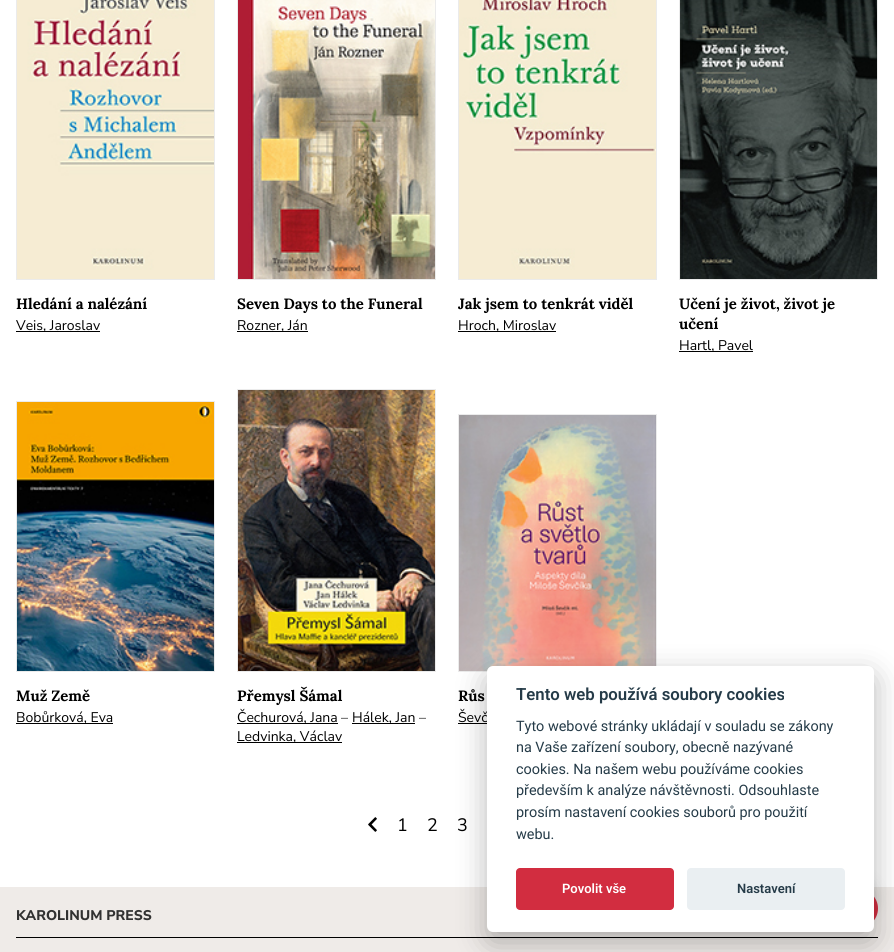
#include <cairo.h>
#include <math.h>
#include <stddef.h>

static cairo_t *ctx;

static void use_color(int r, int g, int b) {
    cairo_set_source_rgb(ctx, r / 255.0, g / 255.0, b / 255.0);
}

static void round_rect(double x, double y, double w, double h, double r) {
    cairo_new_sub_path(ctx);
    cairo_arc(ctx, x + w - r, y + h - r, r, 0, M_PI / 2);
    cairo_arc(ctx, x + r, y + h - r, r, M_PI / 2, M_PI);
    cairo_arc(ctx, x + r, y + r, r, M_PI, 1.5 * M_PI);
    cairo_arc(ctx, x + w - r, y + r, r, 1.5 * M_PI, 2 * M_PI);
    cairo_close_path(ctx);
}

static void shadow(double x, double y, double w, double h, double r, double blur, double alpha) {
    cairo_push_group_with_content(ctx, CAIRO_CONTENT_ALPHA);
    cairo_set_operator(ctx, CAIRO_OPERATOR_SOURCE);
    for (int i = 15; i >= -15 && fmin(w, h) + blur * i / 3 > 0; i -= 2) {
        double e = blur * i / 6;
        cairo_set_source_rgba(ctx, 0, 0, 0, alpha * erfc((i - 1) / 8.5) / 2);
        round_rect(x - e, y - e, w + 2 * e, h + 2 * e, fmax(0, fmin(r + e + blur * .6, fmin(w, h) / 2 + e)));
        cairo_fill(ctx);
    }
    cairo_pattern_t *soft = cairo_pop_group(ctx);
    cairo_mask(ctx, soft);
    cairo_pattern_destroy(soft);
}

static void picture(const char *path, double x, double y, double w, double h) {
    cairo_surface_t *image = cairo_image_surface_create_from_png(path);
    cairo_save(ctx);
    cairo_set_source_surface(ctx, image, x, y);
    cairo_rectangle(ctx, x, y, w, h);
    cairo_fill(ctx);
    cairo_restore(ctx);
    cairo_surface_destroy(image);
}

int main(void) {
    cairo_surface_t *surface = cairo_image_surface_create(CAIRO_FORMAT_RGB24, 894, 952);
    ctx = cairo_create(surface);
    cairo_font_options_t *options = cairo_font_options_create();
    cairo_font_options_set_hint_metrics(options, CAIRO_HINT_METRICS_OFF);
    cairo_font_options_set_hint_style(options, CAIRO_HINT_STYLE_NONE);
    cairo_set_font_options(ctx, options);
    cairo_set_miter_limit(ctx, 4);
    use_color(255, 255, 255);
    cairo_paint(ctx);
    cairo_rectangle(ctx, 16.5, -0.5, 198, 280);
    use_color(235, 235, 235);
    cairo_set_line_width(ctx, 1);
    cairo_stroke(ctx);
    picture("img1.png", 17, 0, 197, 279);
    cairo_select_font_face(ctx, "Lora", CAIRO_FONT_SLANT_NORMAL, CAIRO_FONT_WEIGHT_BOLD);
    cairo_set_font_size(ctx, 14.9);
    use_color(0, 0, 0);
    cairo_move_to(ctx, 16, 309);
    cairo_show_text(ctx, "Hledání a nalézání");
    cairo_rectangle(ctx, 16, 331, 84, 1);
    cairo_fill(ctx);
    cairo_select_font_face(ctx, "Nunito Sans", CAIRO_FONT_SLANT_NORMAL, CAIRO_FONT_WEIGHT_NORMAL);
    cairo_set_font_size(ctx, 14);
    cairo_move_to(ctx, 16, 330);
    cairo_show_text(ctx, "Veis, Jaroslav");
    cairo_rectangle(ctx, 237.5, -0.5, 198, 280);
    use_color(235, 235, 235);
    cairo_stroke(ctx);
    picture("img2.png", 238, 0, 197, 279);
    cairo_select_font_face(ctx, "Lora", CAIRO_FONT_SLANT_NORMAL, CAIRO_FONT_WEIGHT_BOLD);
    cairo_set_font_size(ctx, 14.9);
    use_color(0, 0, 0);
    cairo_move_to(ctx, 237, 309);
    cairo_show_text(ctx, "Seven Days to the Funeral");
    cairo_rectangle(ctx, 237, 331, 71, 1);
    cairo_fill(ctx);
    cairo_select_font_face(ctx, "Nunito Sans", CAIRO_FONT_SLANT_NORMAL, CAIRO_FONT_WEIGHT_NORMAL);
    cairo_set_font_size(ctx, 14);
    cairo_move_to(ctx, 237, 330);
    cairo_show_text(ctx, "Rozner, Ján");
    cairo_rectangle(ctx, 458.5, -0.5, 198, 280);
    use_color(235, 235, 235);
    cairo_stroke(ctx);
    picture("img3.png", 459, 0, 197, 279);
    cairo_select_font_face(ctx, "Lora", CAIRO_FONT_SLANT_NORMAL, CAIRO_FONT_WEIGHT_BOLD);
    cairo_set_font_size(ctx, 14.9);
    use_color(0, 0, 0);
    cairo_move_to(ctx, 458, 309);
    cairo_show_text(ctx, "Jak jsem to tenkrát viděl");
    cairo_rectangle(ctx, 458, 331, 98, 1);
    cairo_fill(ctx);
    cairo_select_font_face(ctx, "Nunito Sans", CAIRO_FONT_SLANT_NORMAL, CAIRO_FONT_WEIGHT_NORMAL);
    cairo_set_font_size(ctx, 14);
    cairo_move_to(ctx, 458, 330);
    cairo_show_text(ctx, "Hroch, Miroslav");
    cairo_rectangle(ctx, 679.5, -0.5, 198, 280);
    use_color(235, 235, 235);
    cairo_stroke(ctx);
    picture("img4.png", 680, 0, 197, 279);
    cairo_select_font_face(ctx, "Lora", CAIRO_FONT_SLANT_NORMAL, CAIRO_FONT_WEIGHT_BOLD);
    cairo_set_font_size(ctx, 14.9);
    use_color(0, 0, 0);
    cairo_move_to(ctx, 679, 309);
    cairo_show_text(ctx, "Učení je život, život je");
    cairo_move_to(ctx, 679, 329);
    cairo_show_text(ctx, "učení");
    cairo_rectangle(ctx, 679, 351, 74, 1);
    cairo_fill(ctx);
    cairo_select_font_face(ctx, "Nunito Sans", CAIRO_FONT_SLANT_NORMAL, CAIRO_FONT_WEIGHT_NORMAL);
    cairo_set_font_size(ctx, 14);
    cairo_move_to(ctx, 679, 350);
    cairo_show_text(ctx, "Hartl, Pavel");
    cairo_rectangle(ctx, 16.5, 401.5, 198, 270);
    use_color(235, 235, 235);
    cairo_stroke(ctx);
    picture("img5.png", 17, 402, 197, 269);
    cairo_select_font_face(ctx, "Lora", CAIRO_FONT_SLANT_NORMAL, CAIRO_FONT_WEIGHT_BOLD);
    cairo_set_font_size(ctx, 14.9);
    use_color(0, 0, 0);
    cairo_move_to(ctx, 16, 701);
    cairo_show_text(ctx, "Muž Země");
    cairo_rectangle(ctx, 16, 723, 97, 1);
    cairo_fill(ctx);
    cairo_select_font_face(ctx, "Nunito Sans", CAIRO_FONT_SLANT_NORMAL, CAIRO_FONT_WEIGHT_NORMAL);
    cairo_set_font_size(ctx, 14);
    cairo_move_to(ctx, 16, 722);
    cairo_show_text(ctx, "Bobůrková, Eva");
    cairo_rectangle(ctx, 237.5, 389.5, 198, 282);
    use_color(235, 235, 235);
    cairo_stroke(ctx);
    picture("img6.png", 238, 390, 197, 281);
    cairo_select_font_face(ctx, "Lora", CAIRO_FONT_SLANT_NORMAL, CAIRO_FONT_WEIGHT_BOLD);
    cairo_set_font_size(ctx, 14.9);
    use_color(0, 0, 0);
    cairo_move_to(ctx, 237, 701);
    cairo_show_text(ctx, "Přemysl Šámal");
    cairo_rectangle(ctx, 237, 723, 101, 1);
    cairo_fill(ctx);
    cairo_select_font_face(ctx, "Nunito Sans", CAIRO_FONT_SLANT_NORMAL, CAIRO_FONT_WEIGHT_NORMAL);
    cairo_set_font_size(ctx, 14);
    cairo_move_to(ctx, 237, 722);
    cairo_show_text(ctx, "Čechurová, Jana");
    use_color(49, 49, 49);
    cairo_move_to(ctx, 341, 722);
    cairo_show_text(ctx, "–");
    use_color(0, 0, 0);
    cairo_rectangle(ctx, 352, 723, 63, 1);
    cairo_fill(ctx);
    cairo_move_to(ctx, 352, 722);
    cairo_show_text(ctx, "Hálek, Jan");
    use_color(49, 49, 49);
    cairo_move_to(ctx, 419, 722);
    cairo_show_text(ctx, "–");
    use_color(0, 0, 0);
    cairo_rectangle(ctx, 237, 742, 105, 1);
    cairo_fill(ctx);
    cairo_move_to(ctx, 237, 741);
    cairo_show_text(ctx, "Ledvinka, Václav");
    cairo_rectangle(ctx, 458.5, 414.5, 198, 257);
    use_color(235, 235, 235);
    cairo_stroke(ctx);
    picture("img7.png", 459, 415, 197, 256);
    cairo_select_font_face(ctx, "Lora", CAIRO_FONT_SLANT_NORMAL, CAIRO_FONT_WEIGHT_BOLD);
    cairo_set_font_size(ctx, 14.9);
    use_color(0, 0, 0);
    cairo_move_to(ctx, 458, 701);
    cairo_show_text(ctx, "Růs");
    cairo_select_font_face(ctx, "Nunito Sans", CAIRO_FONT_SLANT_NORMAL, CAIRO_FONT_WEIGHT_NORMAL);
    cairo_set_font_size(ctx, 14);
    cairo_move_to(ctx, 458, 722);
    cairo_show_text(ctx, "Ševč");
    cairo_rectangle(ctx, 458, 723, 29, 1);
    cairo_fill(ctx);
    picture("img8.png", 368, 817, 9, 15);
    cairo_set_font_size(ctx, 18);
    cairo_move_to(ctx, 397, 831);
    cairo_show_text(ctx, "1");
    cairo_move_to(ctx, 427, 831);
    cairo_show_text(ctx, "2");
    cairo_move_to(ctx, 457, 831);
    cairo_show_text(ctx, "3");
    use_color(239, 235, 232);
    cairo_rectangle(ctx, 0, 887, 894, 65);
    cairo_fill(ctx);
    use_color(0, 0, 0);
    cairo_rectangle(ctx, 16, 937, 862, 1);
    cairo_fill(ctx);
    cairo_select_font_face(ctx, "Nunito Sans ExtraBold", CAIRO_FONT_SLANT_NORMAL, CAIRO_FONT_WEIGHT_NORMAL);
    cairo_set_font_size(ctx, 14);
    use_color(49, 49, 49);
    cairo_move_to(ctx, 16, 920);
    cairo_show_text(ctx, "KAROLINUM PRESS");
    use_color(0, 0, 0);
    shadow(834, 879, 39, 39, 19.5, 7.5, 0.2);
    use_color(210, 45, 64);
    cairo_arc(ctx, 858.5, 908.5, 19.5, 0, 2 * M_PI);
    cairo_fill(ctx);
    use_color(2, 2, 3);
    shadow(487, 676, 387, 266, 6, 15, 0.28);
    use_color(255, 255, 255);
    round_rect(487, 666, 387, 266, 6);
    cairo_fill(ctx);
    cairo_select_font_face(ctx, "Roboto SemiBold", CAIRO_FONT_SLANT_NORMAL, CAIRO_FONT_WEIGHT_NORMAL);
    cairo_set_font_size(ctx, 16.75);
    use_color(37, 59, 72);
    cairo_move_to(ctx, 516, 700);
    cairo_show_text(ctx, "Tento web používá soubory cookies");
    cairo_select_font_face(ctx, "Roboto", CAIRO_FONT_SLANT_NORMAL, CAIRO_FONT_WEIGHT_NORMAL);
    cairo_set_font_size(ctx, 14.4);
    cairo_move_to(ctx, 516, 731);
    cairo_show_text(ctx, "Tyto webové stránky ukládají v souladu se zákony");
    cairo_move_to(ctx, 516, 752);
    cairo_show_text(ctx, "na Vaše zařízení soubory, obecně nazývané");
    cairo_move_to(ctx, 516, 774);
    cairo_show_text(ctx, "cookies. Na našem webu používáme cookies");
    cairo_move_to(ctx, 516, 795);
    cairo_show_text(ctx, "především k analýze návštěvnosti. Odsouhlaste");
    cairo_move_to(ctx, 516, 817);
    cairo_show_text(ctx, "prosím nastavení cookies souborů pro použití");
    cairo_move_to(ctx, 516, 839);
    cairo_show_text(ctx, "webu.");
    use_color(210, 45, 64);
    round_rect(516, 868, 158, 42, 4);
    cairo_fill(ctx);
    cairo_select_font_face(ctx, "Roboto SemiBold", CAIRO_FONT_SLANT_NORMAL, CAIRO_FONT_WEIGHT_NORMAL);
    cairo_set_font_size(ctx, 13);
    use_color(255, 255, 255);
    cairo_move_to(ctx, 562, 893);
    cairo_show_text(ctx, "Povolit vše");
    use_color(234, 239, 242);
    round_rect(687, 868, 158, 42, 4);
    cairo_fill(ctx);
    use_color(37, 59, 72);
    cairo_move_to(ctx, 737, 893);
    cairo_show_text(ctx, "Nastavení");
    cairo_surface_write_to_png(surface, "result.png");
    cairo_font_options_destroy(options);
    cairo_destroy(ctx);
    cairo_surface_destroy(surface);
    return 0;
}
